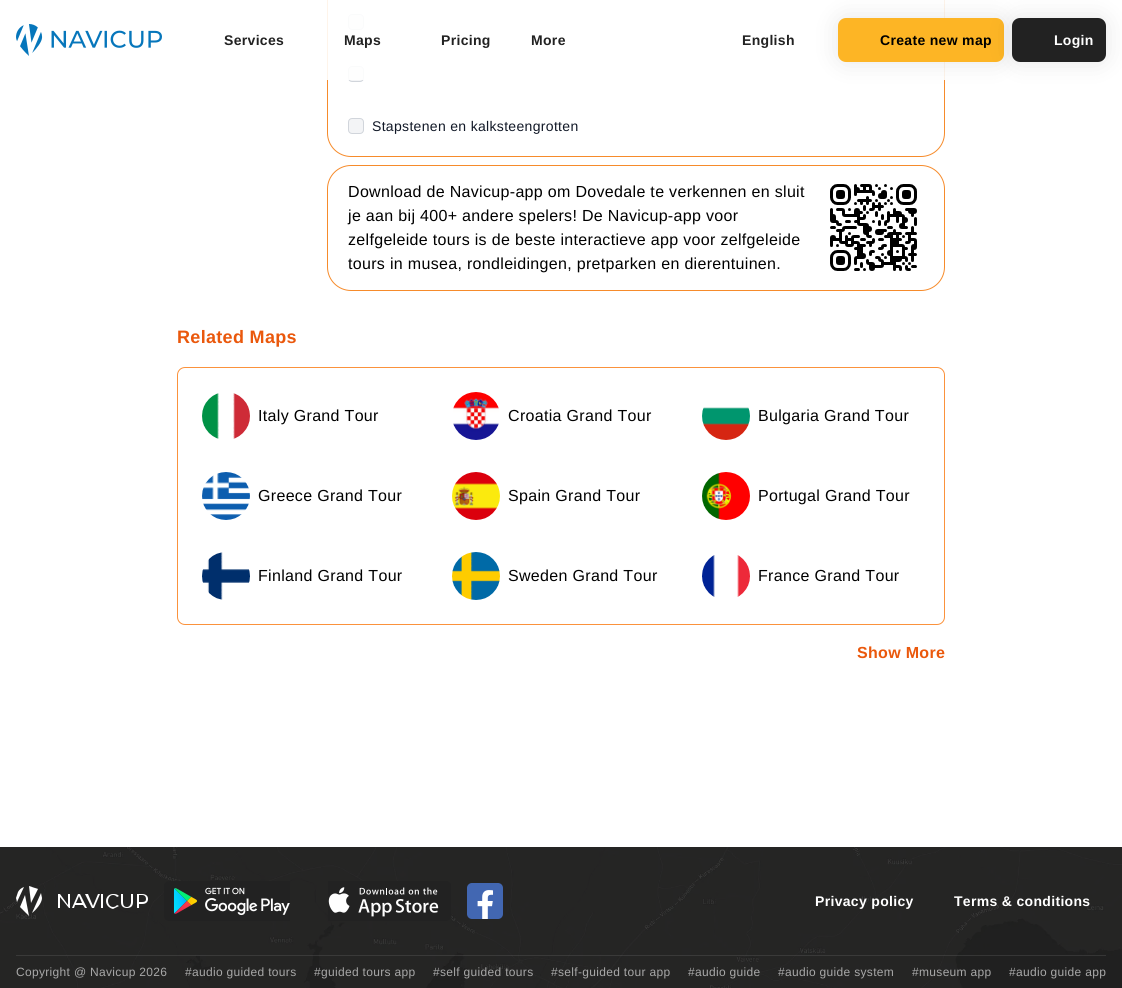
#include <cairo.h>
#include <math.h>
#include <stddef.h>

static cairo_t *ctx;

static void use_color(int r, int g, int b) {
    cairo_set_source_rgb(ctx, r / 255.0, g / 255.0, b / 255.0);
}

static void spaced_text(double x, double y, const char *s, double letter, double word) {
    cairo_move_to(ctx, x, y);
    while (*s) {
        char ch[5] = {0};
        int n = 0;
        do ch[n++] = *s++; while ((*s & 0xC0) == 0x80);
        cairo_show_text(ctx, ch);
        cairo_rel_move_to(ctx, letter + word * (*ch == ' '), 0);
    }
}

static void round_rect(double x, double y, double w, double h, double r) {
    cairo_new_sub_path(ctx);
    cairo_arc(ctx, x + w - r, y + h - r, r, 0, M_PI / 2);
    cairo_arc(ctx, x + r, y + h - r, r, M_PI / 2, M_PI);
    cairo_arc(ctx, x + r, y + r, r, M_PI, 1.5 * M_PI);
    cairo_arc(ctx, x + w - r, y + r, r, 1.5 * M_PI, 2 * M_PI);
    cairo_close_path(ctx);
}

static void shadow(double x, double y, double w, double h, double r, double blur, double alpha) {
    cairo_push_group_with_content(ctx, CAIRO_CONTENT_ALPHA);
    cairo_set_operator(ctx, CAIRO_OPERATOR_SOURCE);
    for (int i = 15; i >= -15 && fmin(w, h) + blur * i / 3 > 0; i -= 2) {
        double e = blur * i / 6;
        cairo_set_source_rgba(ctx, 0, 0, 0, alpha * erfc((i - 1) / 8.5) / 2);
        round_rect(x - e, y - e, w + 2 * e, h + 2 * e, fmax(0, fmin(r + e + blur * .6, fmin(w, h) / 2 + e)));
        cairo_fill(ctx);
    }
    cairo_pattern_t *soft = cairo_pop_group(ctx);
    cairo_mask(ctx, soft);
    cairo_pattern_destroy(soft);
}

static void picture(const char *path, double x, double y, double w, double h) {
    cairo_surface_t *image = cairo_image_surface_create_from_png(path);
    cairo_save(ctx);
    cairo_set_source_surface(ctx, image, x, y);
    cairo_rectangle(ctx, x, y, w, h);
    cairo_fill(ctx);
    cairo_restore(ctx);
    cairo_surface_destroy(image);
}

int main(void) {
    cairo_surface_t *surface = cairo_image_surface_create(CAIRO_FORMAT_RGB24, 1122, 988);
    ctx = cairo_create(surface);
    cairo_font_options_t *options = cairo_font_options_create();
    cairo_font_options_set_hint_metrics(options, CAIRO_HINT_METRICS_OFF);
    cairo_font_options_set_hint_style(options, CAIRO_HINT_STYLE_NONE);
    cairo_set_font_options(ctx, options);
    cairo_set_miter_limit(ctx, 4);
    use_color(255, 255, 255);
    cairo_paint(ctx);
    round_rect(327.5, -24.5, 617, 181, 23.5);
    use_color(246, 139, 43);
    cairo_set_line_width(ctx, 1);
    cairo_stroke(ctx);
    use_color(243, 244, 246);
    round_rect(348.5, 14.5, 15, 15, 3.5);
    cairo_fill_preserve(ctx);
    use_color(209, 213, 219);
    cairo_stroke(ctx);
    use_color(243, 244, 246);
    round_rect(348.5, 66.5, 15, 15, 3.5);
    cairo_fill_preserve(ctx);
    use_color(209, 213, 219);
    cairo_stroke(ctx);
    cairo_set_source_rgba(ctx, 1, 1, 1, 0.9);
    cairo_rectangle(ctx, 327, 0, 618, 80);
    cairo_fill(ctx);
    picture("img1.png", 16, 24, 146, 32);
    cairo_select_font_face(ctx, "Liberation Sans", CAIRO_FONT_SLANT_NORMAL, CAIRO_FONT_WEIGHT_BOLD);
    cairo_set_font_size(ctx, 14);
    use_color(34, 34, 34);
    spaced_text(224, 45, "Services", 0.32, 0);
    spaced_text(344, 45, "Maps", 0.32, 0);
    spaced_text(441, 45, "Pricing", 0.32, 0);
    spaced_text(531, 45, "More", 0.32, 0);
    spaced_text(742, 45, "English", 0.32, 0);
    use_color(0, 0, 0);
    shadow(838, 18, 166, 44, 8, 12, 0.1);
    use_color(253, 181, 37);
    round_rect(838, 18, 166, 44, 8);
    cairo_fill(ctx);
    use_color(0, 0, 0);
    spaced_text(880, 45, "Create new map", 0.32, 0);
    use_color(0, 0, 0);
    shadow(1012, 18, 94, 44, 8, 12, 0.1);
    use_color(34, 34, 34);
    round_rect(1012, 18, 94, 44, 8);
    cairo_fill(ctx);
    use_color(255, 255, 255);
    spaced_text(1054, 45, "Login", 0.32, 0);
    use_color(243, 244, 246);
    round_rect(348.5, 118.5, 15, 15, 3.5);
    cairo_fill_preserve(ctx);
    use_color(209, 213, 219);
    cairo_stroke(ctx);
    cairo_select_font_face(ctx, "Liberation Sans", CAIRO_FONT_SLANT_NORMAL, CAIRO_FONT_WEIGHT_NORMAL);
    use_color(17, 24, 39);
    spaced_text(372, 131, "Stapstenen en kalksteengrotten", 0.32, 0);
    round_rect(327.5, 165.5, 617, 125, 23.5);
    use_color(246, 139, 43);
    cairo_stroke(ctx);
    cairo_set_font_size(ctx, 16);
    use_color(0, 0, 0);
    spaced_text(348, 197, "Download de Navicup-app om Dovedale te verkennen en sluit", 0.32, 0);
    spaced_text(348, 221, "je aan bij 400+ andere spelers! De Navicup-app voor", 0.32, 0);
    spaced_text(348, 245, "zelfgeleide tours is de beste interactieve app voor zelfgeleide", 0.32, 0);
    spaced_text(348, 269, "tours in musea, rondleidingen, pretparken en dierentuinen.", 0.32, 0);
    picture("img2.png", 830, 184, 87, 87);
    cairo_select_font_face(ctx, "Liberation Sans", CAIRO_FONT_SLANT_NORMAL, CAIRO_FONT_WEIGHT_BOLD);
    cairo_set_font_size(ctx, 18);
    use_color(234, 88, 12);
    spaced_text(177, 343, "Related Maps", 0.32, 0);
    round_rect(177.5, 367.5, 767, 257, 7.5);
    use_color(251, 146, 60);
    cairo_stroke(ctx);
    picture("img3.png", 202, 393, 48, 46);
    cairo_select_font_face(ctx, "Liberation Sans", CAIRO_FONT_SLANT_NORMAL, CAIRO_FONT_WEIGHT_NORMAL);
    cairo_set_font_size(ctx, 16);
    use_color(0, 0, 0);
    spaced_text(258, 421, "Italy Grand Tour", 0.32, 0);
    picture("img4.png", 453, 392, 46, 48);
    spaced_text(508, 421, "Croatia Grand Tour", 0.32, 0);
    picture("img5.png", 702, 407, 48, 33);
    spaced_text(758, 421, "Bulgaria Grand Tour", 0.32, 0);
    picture("img6.png", 202, 472, 48, 48);
    spaced_text(258, 501, "Greece Grand Tour", 0.32, 0);
    picture("img7.png", 452, 472, 48, 48);
    spaced_text(508, 501, "Spain Grand Tour", 0.32, 0);
    picture("img8.png", 702, 472, 48, 48);
    spaced_text(758, 501, "Portugal Grand Tour", 0.32, 0);
    picture("img9.png", 202, 552, 48, 48);
    spaced_text(258, 581, "Finland Grand Tour", 0.32, 0);
    picture("img10.png", 452, 552, 48, 48);
    spaced_text(508, 581, "Sweden Grand Tour", 0.32, 0);
    picture("img11.png", 702, 555, 48, 42);
    spaced_text(758, 581, "France Grand Tour", 0.32, 0);
    cairo_select_font_face(ctx, "Liberation Sans", CAIRO_FONT_SLANT_NORMAL, CAIRO_FONT_WEIGHT_BOLD);
    use_color(234, 88, 12);
    spaced_text(857, 658, "Show More", 0.32, 0);
    use_color(34, 34, 34);
    cairo_rectangle(ctx, 0, 847, 1122, 141);
    cairo_fill(ctx);
    picture("img12.png", 0, 847, 1122, 141);
    cairo_set_source_rgba(ctx, 1, 1, 1, 0.1);
    cairo_rectangle(ctx, 16, 955, 1090, 1);
    cairo_fill(ctx);
    picture("img13.png", 16, 886, 132, 30);
    picture("img14.png", 164, 881, 126, 40);
    picture("img15.png", 328, 881, 123, 40);
    picture("img16.png", 467, 883, 36, 36);
    cairo_set_font_size(ctx, 14);
    use_color(255, 255, 255);
    spaced_text(815, 906, "Privacy policy", 0.32, 0);
    spaced_text(954, 906, "Terms & conditions", 0.32, 0);
    cairo_select_font_face(ctx, "Liberation Sans", CAIRO_FONT_SLANT_NORMAL, CAIRO_FONT_WEIGHT_NORMAL);
    cairo_set_font_size(ctx, 12);
    use_color(168, 168, 168);
    spaced_text(16, 976, "Copyright @ Navicup 2026", 0.32, 0);
    spaced_text(185, 976, "#audio guided tours", 0.32, 0);
    spaced_text(314, 976, "#guided tours app", 0.32, 0);
    spaced_text(433, 976, "#self guided tours", 0.32, 0);
    spaced_text(551, 976, "#self-guided tour app", 0.32, 0);
    spaced_text(688, 976, "#audio guide", 0.32, 0);
    spaced_text(778, 976, "#audio guide system", 0.32, 0);
    spaced_text(912, 976, "#museum app", 0.32, 0);
    spaced_text(1009, 976, "#audio guide app", 0.32, 0);
    cairo_surface_write_to_png(surface, "result.png");
    cairo_font_options_destroy(options);
    cairo_destroy(ctx);
    cairo_surface_destroy(surface);
    return 0;
}
